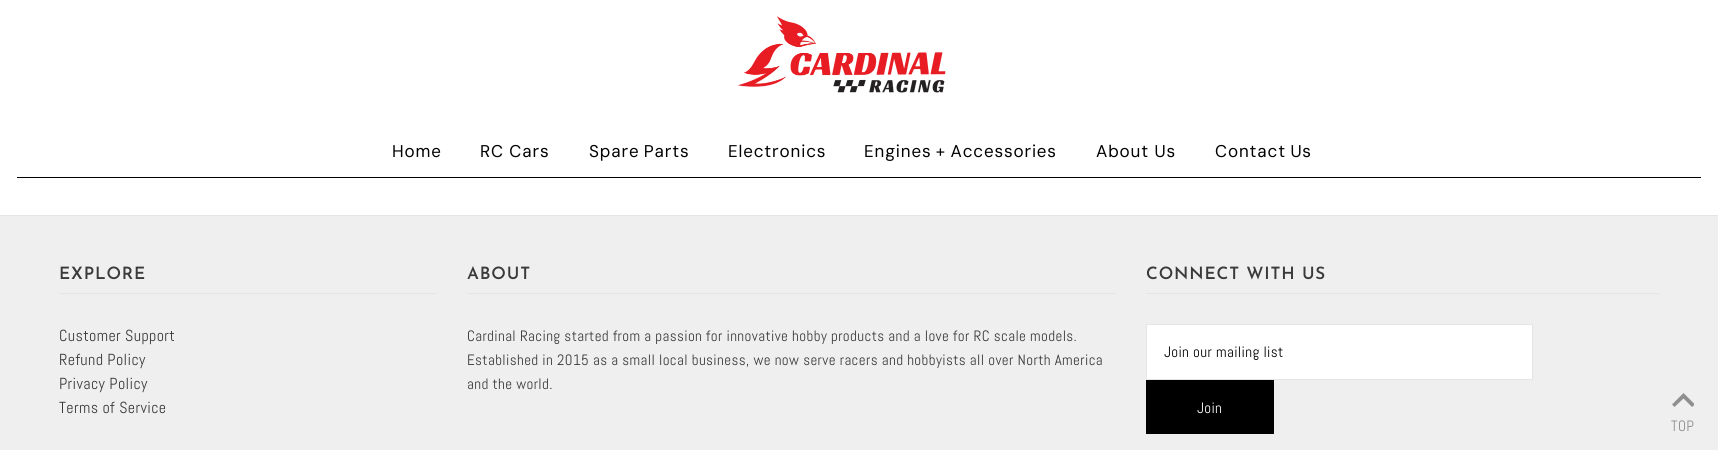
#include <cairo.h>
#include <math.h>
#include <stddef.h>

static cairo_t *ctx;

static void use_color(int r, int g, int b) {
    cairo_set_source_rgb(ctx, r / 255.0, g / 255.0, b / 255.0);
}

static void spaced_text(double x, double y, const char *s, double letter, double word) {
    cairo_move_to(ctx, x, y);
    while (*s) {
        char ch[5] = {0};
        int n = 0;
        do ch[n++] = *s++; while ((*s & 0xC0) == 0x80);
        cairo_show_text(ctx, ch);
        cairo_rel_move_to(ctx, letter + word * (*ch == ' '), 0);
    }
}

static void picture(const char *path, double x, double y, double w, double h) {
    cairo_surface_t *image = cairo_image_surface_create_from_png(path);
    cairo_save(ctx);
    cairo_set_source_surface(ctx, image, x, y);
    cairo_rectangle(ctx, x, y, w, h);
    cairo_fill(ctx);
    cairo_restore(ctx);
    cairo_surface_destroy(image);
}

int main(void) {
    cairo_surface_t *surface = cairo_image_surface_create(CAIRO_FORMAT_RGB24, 1718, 450);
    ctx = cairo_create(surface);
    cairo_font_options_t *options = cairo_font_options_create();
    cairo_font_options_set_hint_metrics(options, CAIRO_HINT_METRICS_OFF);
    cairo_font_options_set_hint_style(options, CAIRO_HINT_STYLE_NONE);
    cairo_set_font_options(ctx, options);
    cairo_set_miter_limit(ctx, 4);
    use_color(255, 255, 255);
    cairo_paint(ctx);
    use_color(0, 0, 0);
    cairo_rectangle(ctx, 17, 177, 1684, 1);
    cairo_fill(ctx);
    picture("img1.png", 738, 16, 208, 77);
    cairo_select_font_face(ctx, "DM Sans", CAIRO_FONT_SLANT_NORMAL, CAIRO_FONT_WEIGHT_NORMAL);
    cairo_set_font_size(ctx, 17);
    spaced_text(392, 157, "Home", 0.85, 0);
    spaced_text(480, 157, "RC Cars", 0.85, 0);
    spaced_text(589, 157, "Spare Parts", 0.85, -1);
    spaced_text(728, 157, "Electronics", 0.85, 0);
    spaced_text(864, 157, "Engines + Accessories", 0.85, -1);
    spaced_text(1096, 157, "About Us", 0.85, 0);
    spaced_text(1215, 157, "Contact Us", 0.85, -1);
    use_color(239, 239, 239);
    cairo_rectangle(ctx, 0, 216, 1718, 234);
    cairo_fill(ctx);
    use_color(229, 229, 229);
    cairo_rectangle(ctx, 0, 215, 1718, 1);
    cairo_fill(ctx);
    cairo_rectangle(ctx, 59, 293, 378, 1);
    cairo_fill(ctx);
    cairo_select_font_face(ctx, "Josefin Sans SemiBold", CAIRO_FONT_SLANT_NORMAL, CAIRO_FONT_WEIGHT_NORMAL);
    use_color(58, 58, 58);
    spaced_text(59, 279, "EXPLORE", 0.85, 0);
    cairo_select_font_face(ctx, "Abel", CAIRO_FONT_SLANT_NORMAL, CAIRO_FONT_WEIGHT_NORMAL);
    cairo_set_font_size(ctx, 16);
    spaced_text(59, 341, "Customer Support", 0.38, 0);
    spaced_text(59, 365, "Refund Policy", 0.38, 0);
    spaced_text(59, 389, "Privacy Policy", 0.38, 0);
    spaced_text(59, 413, "Terms of Service", 0.38, 0);
    use_color(229, 229, 229);
    cairo_rectangle(ctx, 467, 293, 649, 1);
    cairo_fill(ctx);
    cairo_select_font_face(ctx, "Josefin Sans SemiBold", CAIRO_FONT_SLANT_NORMAL, CAIRO_FONT_WEIGHT_NORMAL);
    cairo_set_font_size(ctx, 17);
    use_color(58, 58, 58);
    spaced_text(467, 279, "ABOUT", 0.85, 0);
    cairo_select_font_face(ctx, "Abel", CAIRO_FONT_SLANT_NORMAL, CAIRO_FONT_WEIGHT_NORMAL);
    cairo_set_font_size(ctx, 15);
    spaced_text(467, 341, "Cardinal Racing started from a passion for innovative hobby products and a love for RC scale models.", 0.38, 0);
    spaced_text(467, 365, "Established in 2015 as a small local business, we now serve racers and hobbyists all over North America", 0.38, 0);
    spaced_text(467, 389, "and the world.", 0.38, 0);
    use_color(229, 229, 229);
    cairo_rectangle(ctx, 1146, 293, 513, 1);
    cairo_fill(ctx);
    cairo_select_font_face(ctx, "Josefin Sans SemiBold", CAIRO_FONT_SLANT_NORMAL, CAIRO_FONT_WEIGHT_NORMAL);
    cairo_set_font_size(ctx, 17);
    use_color(58, 58, 58);
    spaced_text(1146, 279, "CONNECT WITH US", 0.85, 0);
    use_color(255, 255, 255);
    cairo_rectangle(ctx, 1146.5, 324.5, 386, 55);
    cairo_fill_preserve(ctx);
    use_color(229, 229, 229);
    cairo_set_line_width(ctx, 1);
    cairo_stroke(ctx);
    cairo_select_font_face(ctx, "Abel", CAIRO_FONT_SLANT_NORMAL, CAIRO_FONT_WEIGHT_NORMAL);
    cairo_set_font_size(ctx, 15);
    use_color(0, 0, 0);
    spaced_text(1164, 357, "Join our mailing list", 0.38, 0);
    cairo_rectangle(ctx, 1146, 380, 128, 54);
    cairo_fill(ctx);
    use_color(255, 255, 255);
    spaced_text(1197, 413, "Join", 0.38, 0);
    cairo_save(ctx);
    cairo_rectangle(ctx, 1672, 393, 22, 14);
    cairo_clip(ctx);
    use_color(143, 143, 143);
    cairo_new_path(ctx);
    cairo_move_to(ctx, 1683.5, 393);
    cairo_line_to(ctx, 1672, 404.5);
    cairo_line_to(ctx, 1674.5, 407);
    cairo_line_to(ctx, 1683.5, 398.5);
    cairo_line_to(ctx, 1692, 407);
    cairo_line_to(ctx, 1695, 404.5);
    cairo_close_path(ctx);
    cairo_fill(ctx);
    cairo_restore(ctx);
    use_color(143, 143, 143);
    spaced_text(1671, 431, "TOP", 0.38, 0);
    cairo_surface_write_to_png(surface, "result.png");
    cairo_font_options_destroy(options);
    cairo_destroy(ctx);
    cairo_surface_destroy(surface);
    return 0;
}
